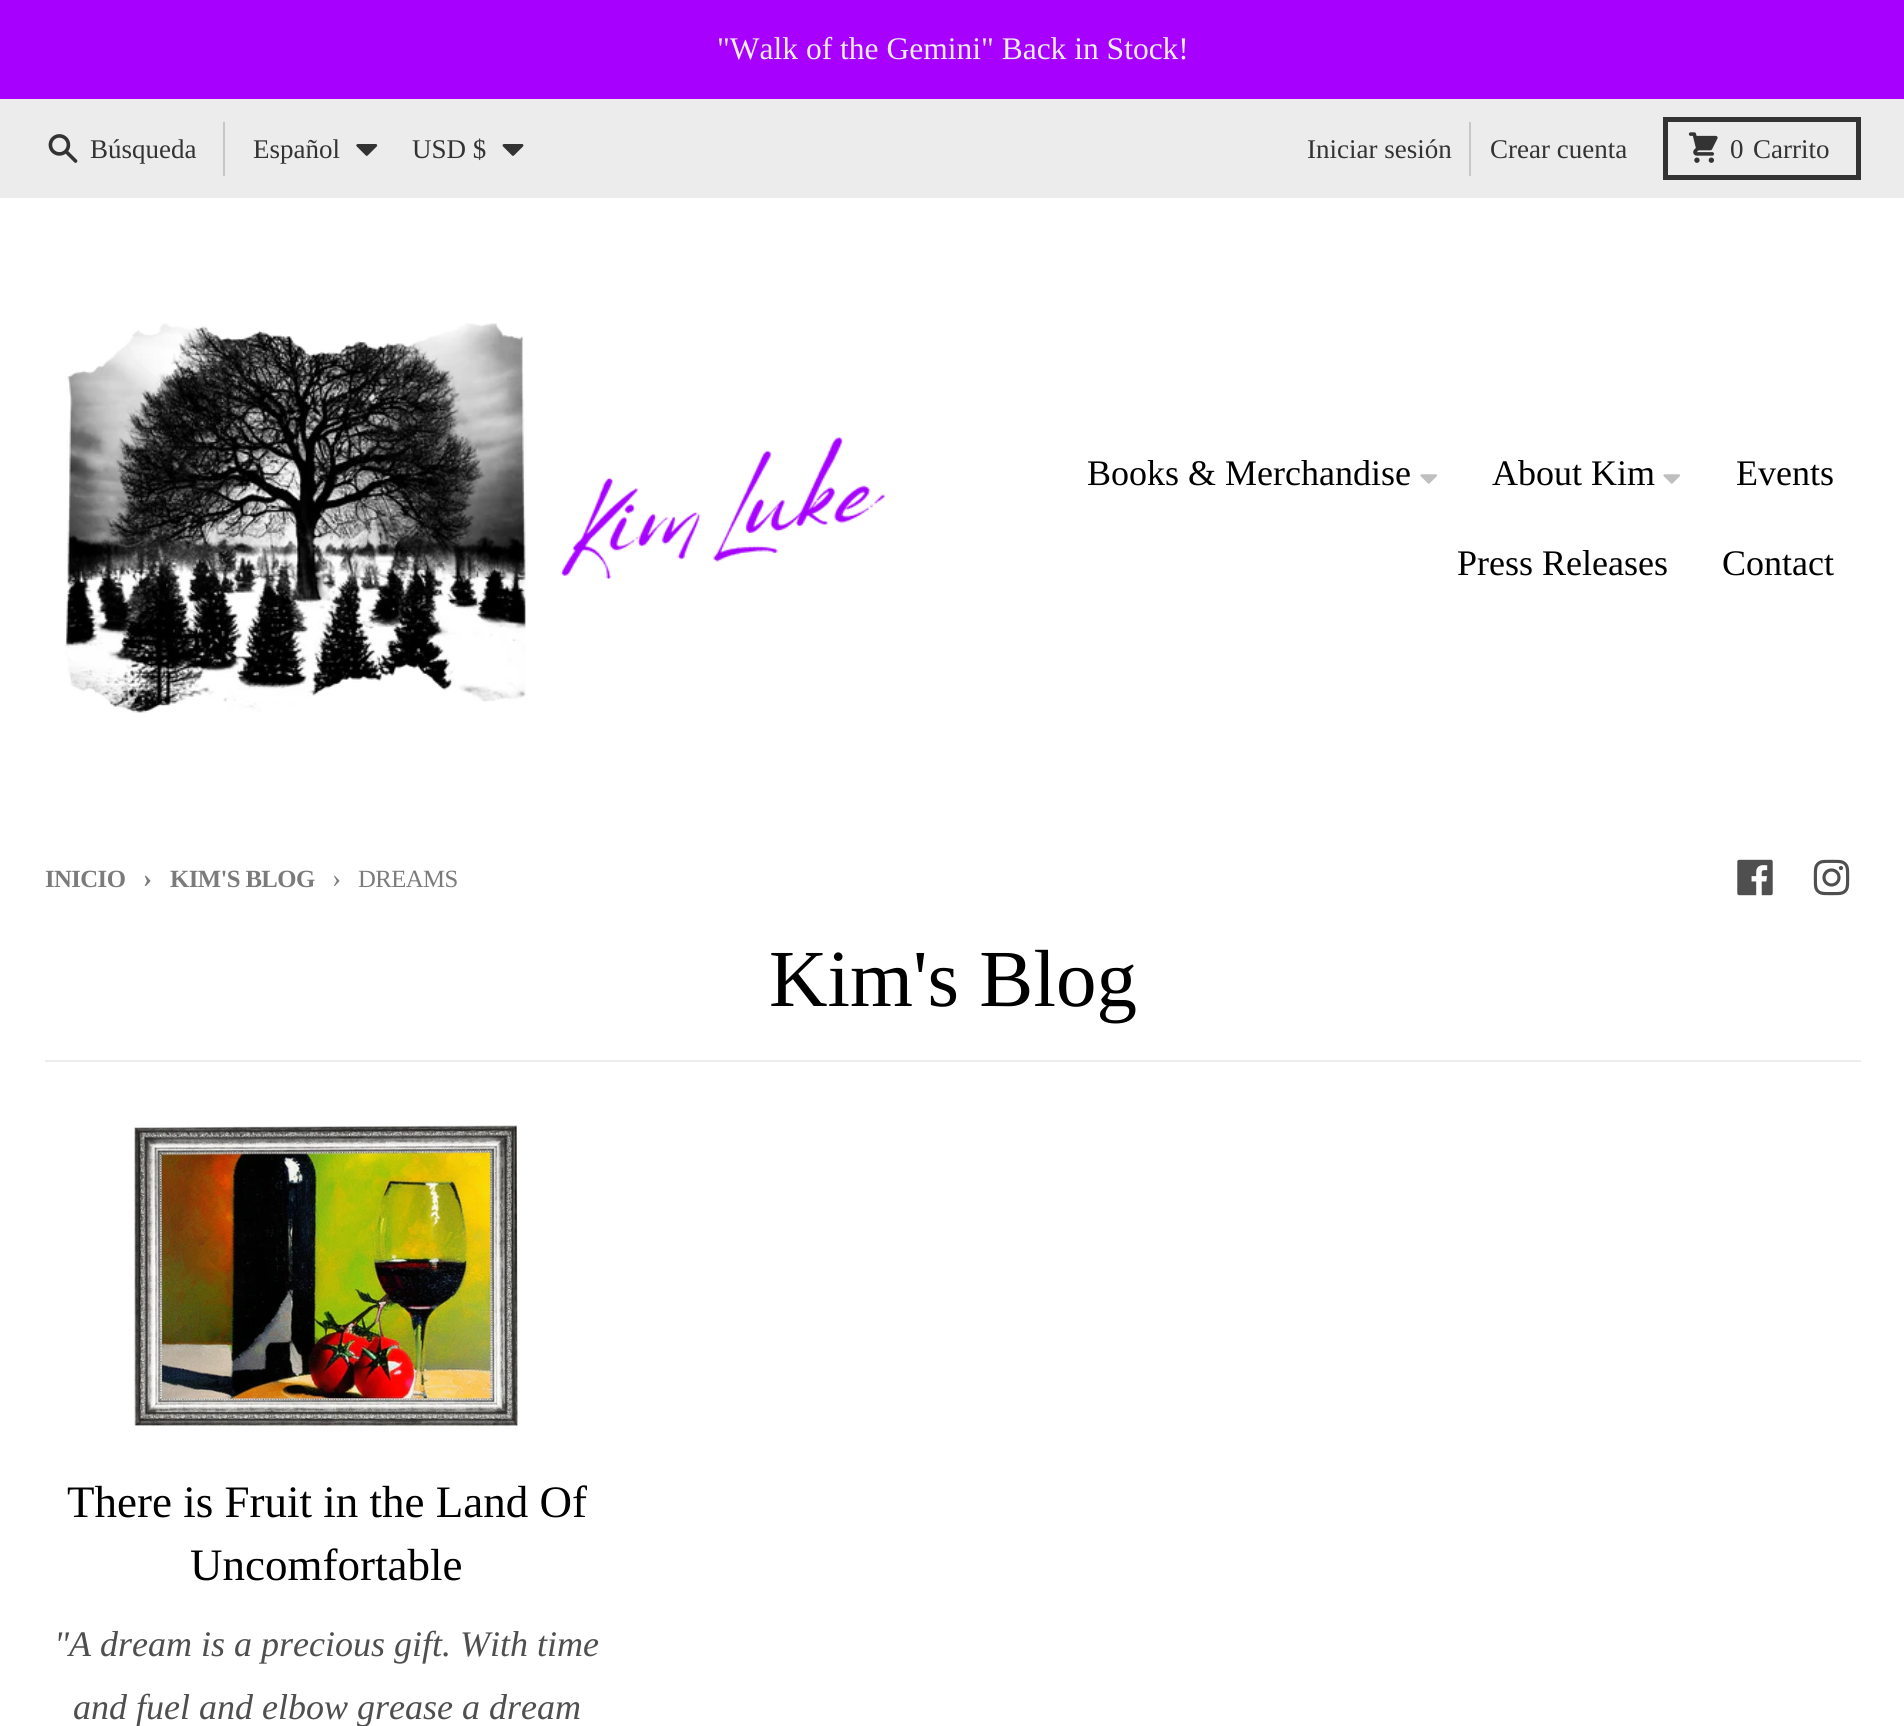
#include <cairo.h>
#include <math.h>
#include <stddef.h>

static cairo_t *ctx;

static void use_color(int r, int g, int b) {
    cairo_set_source_rgb(ctx, r / 255.0, g / 255.0, b / 255.0);
}

static void spaced_text(double x, double y, const char *s, double letter, double word) {
    cairo_move_to(ctx, x, y);
    while (*s) {
        char ch[5] = {0};
        int n = 0;
        do ch[n++] = *s++; while ((*s & 0xC0) == 0x80);
        cairo_show_text(ctx, ch);
        cairo_rel_move_to(ctx, letter + word * (*ch == ' '), 0);
    }
}

static void picture(const char *path, double x, double y, double w, double h) {
    cairo_surface_t *image = cairo_image_surface_create_from_png(path);
    cairo_save(ctx);
    cairo_set_source_surface(ctx, image, x, y);
    cairo_rectangle(ctx, x, y, w, h);
    cairo_fill(ctx);
    cairo_restore(ctx);
    cairo_surface_destroy(image);
}

int main(void) {
    cairo_surface_t *surface = cairo_image_surface_create(CAIRO_FORMAT_RGB24, 1904, 1726);
    ctx = cairo_create(surface);
    cairo_font_options_t *options = cairo_font_options_create();
    cairo_font_options_set_hint_metrics(options, CAIRO_HINT_METRICS_OFF);
    cairo_font_options_set_hint_style(options, CAIRO_HINT_STYLE_NONE);
    cairo_set_font_options(ctx, options);
    cairo_set_miter_limit(ctx, 4);
    use_color(236, 236, 236);
    cairo_paint(ctx);
    use_color(167, 0, 255);
    cairo_rectangle(ctx, 0, 0, 1904, 99);
    cairo_fill(ctx);
    cairo_select_font_face(ctx, "Liberation Serif", CAIRO_FONT_SLANT_NORMAL, CAIRO_FONT_WEIGHT_NORMAL);
    cairo_set_font_size(ctx, 31.5);
    use_color(237, 237, 237);
    cairo_move_to(ctx, 717, 59);
    cairo_show_text(ctx, "\"Walk of the Gemini\" Back in Stock!");
    picture("img1.png", 48, 134, 30, 29);
    cairo_set_font_size(ctx, 27);
    use_color(51, 51, 51);
    cairo_move_to(ctx, 90, 158);
    cairo_show_text(ctx, "Búsqueda");
    use_color(199, 199, 199);
    cairo_rectangle(ctx, 223, 122, 2, 54);
    cairo_fill(ctx);
    use_color(51, 51, 51);
    cairo_move_to(ctx, 253, 158);
    cairo_show_text(ctx, "Español");
    picture("img2.png", 356, 144, 22, 12);
    cairo_move_to(ctx, 412, 158);
    cairo_show_text(ctx, "USD $");
    picture("img3.png", 502, 144, 22, 12);
    cairo_move_to(ctx, 1307, 158);
    cairo_show_text(ctx, "Iniciar sesión");
    use_color(199, 199, 199);
    cairo_rectangle(ctx, 1469, 122, 2, 54);
    cairo_fill(ctx);
    use_color(51, 51, 51);
    cairo_move_to(ctx, 1490, 158);
    cairo_show_text(ctx, "Crear cuenta");
    cairo_rectangle(ctx, 1665.5, 119.5, 193, 58);
    cairo_set_line_width(ctx, 5);
    cairo_stroke(ctx);
    picture("img4.png", 1688, 132, 30, 31);
    cairo_move_to(ctx, 1730, 158);
    cairo_show_text(ctx, "0");
    cairo_move_to(ctx, 1753, 158);
    cairo_show_text(ctx, "Carrito");
    use_color(255, 255, 255);
    cairo_rectangle(ctx, 0, 198, 1904, 1528);
    cairo_fill(ctx);
    picture("img5.png", 65, 323, 820, 390);
    cairo_set_font_size(ctx, 36);
    use_color(0, 0, 0);
    cairo_move_to(ctx, 1087, 485);
    cairo_show_text(ctx, "Books & Merchandise");
    picture("img6.png", 1420, 474, 17, 10);
    cairo_move_to(ctx, 1492, 485);
    cairo_show_text(ctx, "About Kim");
    picture("img6.png", 1663, 474, 17, 10);
    cairo_move_to(ctx, 1736, 485);
    cairo_show_text(ctx, "Events");
    cairo_move_to(ctx, 1457, 575);
    cairo_show_text(ctx, "Press Releases");
    cairo_move_to(ctx, 1722, 575);
    cairo_show_text(ctx, "Contact");
    cairo_select_font_face(ctx, "Liberation Serif", CAIRO_FONT_SLANT_NORMAL, CAIRO_FONT_WEIGHT_BOLD);
    cairo_set_font_size(ctx, 24.75);
    use_color(123, 123, 123);
    spaced_text(45, 887, "INICIO", -0.6, 0);
    cairo_set_font_size(ctx, 27);
    spaced_text(143, 887, "›", -0.6, 0);
    cairo_set_font_size(ctx, 24.75);
    spaced_text(170, 887, "KIM'S BLOG", -0.6, 0);
    cairo_select_font_face(ctx, "Liberation Serif", CAIRO_FONT_SLANT_NORMAL, CAIRO_FONT_WEIGHT_NORMAL);
    cairo_set_font_size(ctx, 27);
    spaced_text(332, 887, "›", -0.6, 0);
    cairo_set_font_size(ctx, 24.75);
    spaced_text(358, 887, "DREAMS", -0.6, 0);
    picture("img7.png", 1737, 859, 36, 37);
    picture("img8.png", 1813, 859, 37, 37);
    use_color(237, 237, 237);
    cairo_rectangle(ctx, 45, 1060, 1816, 2);
    cairo_fill(ctx);
    cairo_set_font_size(ctx, 81);
    use_color(0, 0, 0);
    cairo_move_to(ctx, 769, 1006);
    cairo_show_text(ctx, "Kim's Blog");
    picture("img9.png", 133, 1125, 387, 302);
    cairo_set_font_size(ctx, 45);
    cairo_move_to(ctx, 67, 1517);
    cairo_show_text(ctx, "There is Fruit in the Land Of");
    cairo_move_to(ctx, 190, 1580);
    cairo_show_text(ctx, "Uncomfortable");
    cairo_select_font_face(ctx, "Liberation Serif", CAIRO_FONT_SLANT_ITALIC, CAIRO_FONT_WEIGHT_NORMAL);
    cairo_set_font_size(ctx, 36);
    use_color(79, 79, 79);
    cairo_move_to(ctx, 54, 1656);
    cairo_show_text(ctx, "\"A dream is a precious gift. With time");
    cairo_move_to(ctx, 73, 1719);
    cairo_show_text(ctx, "and fuel and elbow grease a dream");
    cairo_surface_write_to_png(surface, "result.png");
    cairo_font_options_destroy(options);
    cairo_destroy(ctx);
    cairo_surface_destroy(surface);
    return 0;
}
